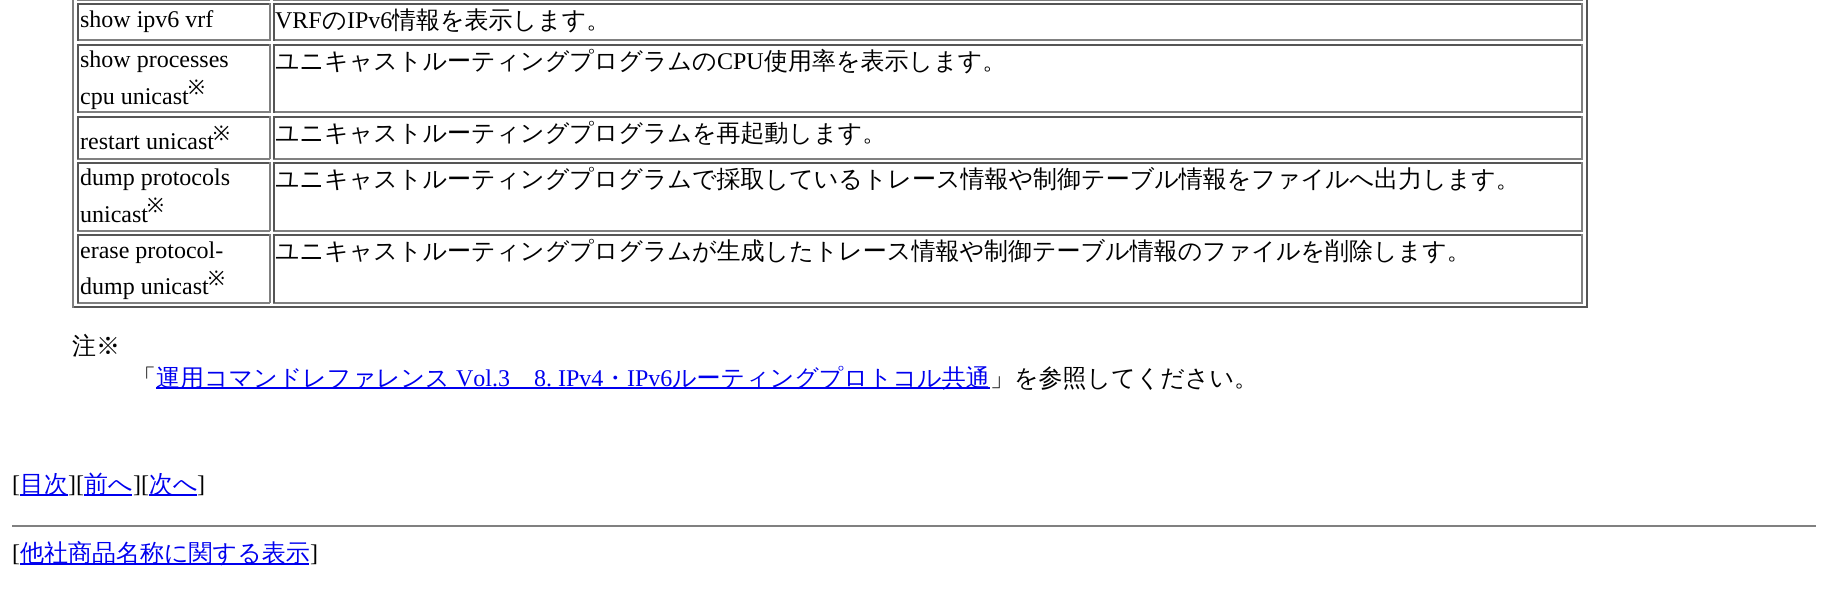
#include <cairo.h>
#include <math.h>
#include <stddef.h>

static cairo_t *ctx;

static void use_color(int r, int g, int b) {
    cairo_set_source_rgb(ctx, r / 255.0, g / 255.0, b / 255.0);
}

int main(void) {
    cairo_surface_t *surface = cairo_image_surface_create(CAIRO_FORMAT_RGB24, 1826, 606);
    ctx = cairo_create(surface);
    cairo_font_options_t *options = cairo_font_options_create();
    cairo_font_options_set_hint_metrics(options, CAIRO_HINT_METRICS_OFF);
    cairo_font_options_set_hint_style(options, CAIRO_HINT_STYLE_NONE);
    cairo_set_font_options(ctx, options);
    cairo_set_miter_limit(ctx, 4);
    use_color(255, 255, 255);
    cairo_paint(ctx);
    use_color(85, 85, 85);
    cairo_rectangle(ctx, 1586, 0, 2, 308);
    cairo_fill(ctx);
    cairo_rectangle(ctx, 72, 306, 1515, 2);
    cairo_fill(ctx);
    use_color(128, 128, 128);
    cairo_rectangle(ctx, 72, 0, 2, 308);
    cairo_fill(ctx);
    cairo_rectangle(ctx, 77, 0, 193, 1);
    cairo_fill(ctx);
    cairo_rectangle(ctx, 273, 0, 1310, 1);
    cairo_fill(ctx);
    use_color(85, 85, 85);
    cairo_rectangle(ctx, 77, 3, 193, 2);
    cairo_fill(ctx);
    use_color(128, 128, 128);
    cairo_rectangle(ctx, 269, 3, 2, 38);
    cairo_fill(ctx);
    cairo_rectangle(ctx, 77, 39, 193, 2);
    cairo_fill(ctx);
    use_color(85, 85, 85);
    cairo_rectangle(ctx, 77, 3, 2, 38);
    cairo_fill(ctx);
    cairo_select_font_face(ctx, "Liberation Serif", CAIRO_FONT_SLANT_NORMAL, CAIRO_FONT_WEIGHT_NORMAL);
    cairo_set_font_size(ctx, 24);
    use_color(0, 0, 0);
    cairo_move_to(ctx, 80, 27);
    cairo_show_text(ctx, "show ipv6 vrf");
    use_color(85, 85, 85);
    cairo_rectangle(ctx, 273, 3, 1310, 2);
    cairo_fill(ctx);
    use_color(128, 128, 128);
    cairo_rectangle(ctx, 1581, 3, 2, 38);
    cairo_fill(ctx);
    cairo_rectangle(ctx, 273, 39, 1310, 2);
    cairo_fill(ctx);
    use_color(85, 85, 85);
    cairo_rectangle(ctx, 273, 3, 2, 38);
    cairo_fill(ctx);
    use_color(0, 0, 0);
    cairo_move_to(ctx, 275, 28);
    cairo_show_text(ctx, "VRF");
    cairo_select_font_face(ctx, "WenQuanYi Zen Hei Medium", CAIRO_FONT_SLANT_NORMAL, CAIRO_FONT_WEIGHT_NORMAL);
    cairo_move_to(ctx, 322, 28);
    cairo_show_text(ctx, "の");
    cairo_select_font_face(ctx, "Liberation Serif", CAIRO_FONT_SLANT_NORMAL, CAIRO_FONT_WEIGHT_NORMAL);
    cairo_move_to(ctx, 347, 28);
    cairo_show_text(ctx, "IPv6");
    cairo_select_font_face(ctx, "WenQuanYi Zen Hei Medium", CAIRO_FONT_SLANT_NORMAL, CAIRO_FONT_WEIGHT_NORMAL);
    cairo_move_to(ctx, 392, 28);
    cairo_show_text(ctx, "情報を表示します。");
    use_color(85, 85, 85);
    cairo_rectangle(ctx, 77, 44, 193, 2);
    cairo_fill(ctx);
    use_color(128, 128, 128);
    cairo_rectangle(ctx, 269, 44, 2, 69);
    cairo_fill(ctx);
    cairo_rectangle(ctx, 77, 111, 193, 2);
    cairo_fill(ctx);
    use_color(85, 85, 85);
    cairo_rectangle(ctx, 77, 44, 2, 69);
    cairo_fill(ctx);
    cairo_select_font_face(ctx, "Liberation Serif", CAIRO_FONT_SLANT_NORMAL, CAIRO_FONT_WEIGHT_NORMAL);
    use_color(0, 0, 0);
    cairo_move_to(ctx, 80, 67);
    cairo_show_text(ctx, "show processes");
    cairo_move_to(ctx, 80, 104);
    cairo_show_text(ctx, "cpu unicast");
    cairo_select_font_face(ctx, "Noto Sans", CAIRO_FONT_SLANT_NORMAL, CAIRO_FONT_WEIGHT_NORMAL);
    cairo_set_font_size(ctx, 20);
    cairo_move_to(ctx, 188, 94);
    cairo_show_text(ctx, "※");
    use_color(85, 85, 85);
    cairo_rectangle(ctx, 273, 44, 1310, 2);
    cairo_fill(ctx);
    use_color(128, 128, 128);
    cairo_rectangle(ctx, 1581, 44, 2, 69);
    cairo_fill(ctx);
    cairo_rectangle(ctx, 273, 111, 1310, 2);
    cairo_fill(ctx);
    use_color(85, 85, 85);
    cairo_rectangle(ctx, 273, 44, 2, 69);
    cairo_fill(ctx);
    cairo_select_font_face(ctx, "WenQuanYi Zen Hei Medium", CAIRO_FONT_SLANT_NORMAL, CAIRO_FONT_WEIGHT_NORMAL);
    cairo_set_font_size(ctx, 24);
    use_color(0, 0, 0);
    cairo_move_to(ctx, 275, 69);
    cairo_show_text(ctx, "ユニキャストルーティングプログラムの");
    cairo_select_font_face(ctx, "Liberation Serif", CAIRO_FONT_SLANT_NORMAL, CAIRO_FONT_WEIGHT_NORMAL);
    cairo_move_to(ctx, 717, 69);
    cairo_show_text(ctx, "CPU");
    cairo_select_font_face(ctx, "WenQuanYi Zen Hei Medium", CAIRO_FONT_SLANT_NORMAL, CAIRO_FONT_WEIGHT_NORMAL);
    cairo_move_to(ctx, 764, 69);
    cairo_show_text(ctx, "使用率を表示します。");
    use_color(85, 85, 85);
    cairo_rectangle(ctx, 77, 116, 193, 2);
    cairo_fill(ctx);
    use_color(128, 128, 128);
    cairo_rectangle(ctx, 269, 116, 2, 43);
    cairo_fill(ctx);
    cairo_rectangle(ctx, 77, 158, 193, 2);
    cairo_fill(ctx);
    use_color(85, 85, 85);
    cairo_rectangle(ctx, 77, 116, 2, 43);
    cairo_fill(ctx);
    cairo_select_font_face(ctx, "Liberation Serif", CAIRO_FONT_SLANT_NORMAL, CAIRO_FONT_WEIGHT_NORMAL);
    use_color(0, 0, 0);
    cairo_move_to(ctx, 80, 149);
    cairo_show_text(ctx, "restart unicast");
    cairo_select_font_face(ctx, "Noto Sans", CAIRO_FONT_SLANT_NORMAL, CAIRO_FONT_WEIGHT_NORMAL);
    cairo_set_font_size(ctx, 20);
    cairo_move_to(ctx, 213, 140);
    cairo_show_text(ctx, "※");
    use_color(85, 85, 85);
    cairo_rectangle(ctx, 273, 116, 1310, 2);
    cairo_fill(ctx);
    use_color(128, 128, 128);
    cairo_rectangle(ctx, 1581, 116, 2, 43);
    cairo_fill(ctx);
    cairo_rectangle(ctx, 273, 158, 1310, 2);
    cairo_fill(ctx);
    use_color(85, 85, 85);
    cairo_rectangle(ctx, 273, 116, 2, 43);
    cairo_fill(ctx);
    cairo_select_font_face(ctx, "WenQuanYi Zen Hei Medium", CAIRO_FONT_SLANT_NORMAL, CAIRO_FONT_WEIGHT_NORMAL);
    cairo_set_font_size(ctx, 24);
    use_color(0, 0, 0);
    cairo_move_to(ctx, 275, 141);
    cairo_show_text(ctx, "ユニキャストルーティングプログラムを再起動します。");
    use_color(85, 85, 85);
    cairo_rectangle(ctx, 77, 162, 193, 2);
    cairo_fill(ctx);
    use_color(128, 128, 128);
    cairo_rectangle(ctx, 269, 162, 2, 69);
    cairo_fill(ctx);
    cairo_rectangle(ctx, 77, 230, 193, 2);
    cairo_fill(ctx);
    use_color(85, 85, 85);
    cairo_rectangle(ctx, 77, 162, 2, 69);
    cairo_fill(ctx);
    cairo_select_font_face(ctx, "Liberation Serif", CAIRO_FONT_SLANT_NORMAL, CAIRO_FONT_WEIGHT_NORMAL);
    use_color(0, 0, 0);
    cairo_move_to(ctx, 80, 185);
    cairo_show_text(ctx, "dump protocols");
    cairo_move_to(ctx, 80, 222);
    cairo_show_text(ctx, "unicast");
    cairo_select_font_face(ctx, "Noto Sans", CAIRO_FONT_SLANT_NORMAL, CAIRO_FONT_WEIGHT_NORMAL);
    cairo_set_font_size(ctx, 20);
    cairo_move_to(ctx, 147, 212);
    cairo_show_text(ctx, "※");
    use_color(85, 85, 85);
    cairo_rectangle(ctx, 273, 162, 1310, 2);
    cairo_fill(ctx);
    use_color(128, 128, 128);
    cairo_rectangle(ctx, 1581, 162, 2, 69);
    cairo_fill(ctx);
    cairo_rectangle(ctx, 273, 230, 1310, 2);
    cairo_fill(ctx);
    use_color(85, 85, 85);
    cairo_rectangle(ctx, 273, 162, 2, 69);
    cairo_fill(ctx);
    cairo_select_font_face(ctx, "WenQuanYi Zen Hei Medium", CAIRO_FONT_SLANT_NORMAL, CAIRO_FONT_WEIGHT_NORMAL);
    cairo_set_font_size(ctx, 24);
    use_color(0, 0, 0);
    cairo_move_to(ctx, 275, 187);
    cairo_show_text(ctx, "ユニキャストルーティングプログラムで採取しているトレース情報や制御テーブル情報をファイルへ出力します。");
    use_color(85, 85, 85);
    cairo_rectangle(ctx, 77, 234, 193, 2);
    cairo_fill(ctx);
    use_color(128, 128, 128);
    cairo_rectangle(ctx, 269, 234, 2, 69);
    cairo_fill(ctx);
    cairo_rectangle(ctx, 77, 302, 193, 2);
    cairo_fill(ctx);
    use_color(85, 85, 85);
    cairo_rectangle(ctx, 77, 234, 2, 69);
    cairo_fill(ctx);
    cairo_select_font_face(ctx, "Liberation Serif", CAIRO_FONT_SLANT_NORMAL, CAIRO_FONT_WEIGHT_NORMAL);
    use_color(0, 0, 0);
    cairo_move_to(ctx, 80, 258);
    cairo_show_text(ctx, "erase protocol-");
    cairo_move_to(ctx, 80, 294);
    cairo_show_text(ctx, "dump unicast");
    cairo_select_font_face(ctx, "Noto Sans", CAIRO_FONT_SLANT_NORMAL, CAIRO_FONT_WEIGHT_NORMAL);
    cairo_set_font_size(ctx, 20);
    cairo_move_to(ctx, 208, 285);
    cairo_show_text(ctx, "※");
    use_color(85, 85, 85);
    cairo_rectangle(ctx, 273, 234, 1310, 2);
    cairo_fill(ctx);
    use_color(128, 128, 128);
    cairo_rectangle(ctx, 1581, 234, 2, 69);
    cairo_fill(ctx);
    cairo_rectangle(ctx, 273, 302, 1310, 2);
    cairo_fill(ctx);
    use_color(85, 85, 85);
    cairo_rectangle(ctx, 273, 234, 2, 69);
    cairo_fill(ctx);
    cairo_select_font_face(ctx, "WenQuanYi Zen Hei Medium", CAIRO_FONT_SLANT_NORMAL, CAIRO_FONT_WEIGHT_NORMAL);
    cairo_set_font_size(ctx, 24);
    use_color(0, 0, 0);
    cairo_move_to(ctx, 275, 259);
    cairo_show_text(ctx, "ユニキャストルーティングプログラムが生成したトレース情報や制御テーブル情報のファイルを削除します。");
    cairo_move_to(ctx, 72, 354);
    cairo_show_text(ctx, "注※");
    cairo_move_to(ctx, 132, 386);
    cairo_show_text(ctx, "「");
    use_color(0, 0, 238);
    cairo_rectangle(ctx, 156, 387, 834, 2);
    cairo_fill(ctx);
    cairo_move_to(ctx, 156, 386);
    cairo_show_text(ctx, "運用コマンドレファレンス");
    cairo_select_font_face(ctx, "Liberation Serif", CAIRO_FONT_SLANT_NORMAL, CAIRO_FONT_WEIGHT_NORMAL);
    cairo_move_to(ctx, 456, 386);
    cairo_show_text(ctx, "Vol.3");
    cairo_move_to(ctx, 534, 386);
    cairo_show_text(ctx, "8. IPv4");
    cairo_select_font_face(ctx, "WenQuanYi Zen Hei Medium", CAIRO_FONT_SLANT_NORMAL, CAIRO_FONT_WEIGHT_NORMAL);
    cairo_move_to(ctx, 603, 386);
    cairo_show_text(ctx, "・");
    cairo_select_font_face(ctx, "Liberation Serif", CAIRO_FONT_SLANT_NORMAL, CAIRO_FONT_WEIGHT_NORMAL);
    cairo_move_to(ctx, 627, 386);
    cairo_show_text(ctx, "IPv6");
    cairo_select_font_face(ctx, "WenQuanYi Zen Hei Medium", CAIRO_FONT_SLANT_NORMAL, CAIRO_FONT_WEIGHT_NORMAL);
    cairo_move_to(ctx, 672, 386);
    cairo_show_text(ctx, "ルーティングプロトコル共通");
    use_color(0, 0, 0);
    cairo_move_to(ctx, 990, 386);
    cairo_show_text(ctx, "」を参照してください。");
    cairo_select_font_face(ctx, "Liberation Serif", CAIRO_FONT_SLANT_NORMAL, CAIRO_FONT_WEIGHT_NORMAL);
    cairo_move_to(ctx, 12, 492);
    cairo_show_text(ctx, "[");
    use_color(0, 0, 238);
    cairo_rectangle(ctx, 20, 494, 48, 2);
    cairo_fill(ctx);
    cairo_select_font_face(ctx, "WenQuanYi Zen Hei Medium", CAIRO_FONT_SLANT_NORMAL, CAIRO_FONT_WEIGHT_NORMAL);
    cairo_move_to(ctx, 20, 492);
    cairo_show_text(ctx, "目次");
    cairo_select_font_face(ctx, "Liberation Serif", CAIRO_FONT_SLANT_NORMAL, CAIRO_FONT_WEIGHT_NORMAL);
    use_color(0, 0, 0);
    cairo_move_to(ctx, 68, 492);
    cairo_show_text(ctx, "][");
    use_color(0, 0, 238);
    cairo_rectangle(ctx, 84, 494, 48, 2);
    cairo_fill(ctx);
    cairo_select_font_face(ctx, "WenQuanYi Zen Hei Medium", CAIRO_FONT_SLANT_NORMAL, CAIRO_FONT_WEIGHT_NORMAL);
    cairo_move_to(ctx, 84, 492);
    cairo_show_text(ctx, "前へ");
    cairo_select_font_face(ctx, "Liberation Serif", CAIRO_FONT_SLANT_NORMAL, CAIRO_FONT_WEIGHT_NORMAL);
    use_color(0, 0, 0);
    cairo_move_to(ctx, 133, 492);
    cairo_show_text(ctx, "][");
    use_color(0, 0, 238);
    cairo_rectangle(ctx, 149, 494, 48, 2);
    cairo_fill(ctx);
    cairo_select_font_face(ctx, "WenQuanYi Zen Hei Medium", CAIRO_FONT_SLANT_NORMAL, CAIRO_FONT_WEIGHT_NORMAL);
    cairo_move_to(ctx, 149, 492);
    cairo_show_text(ctx, "次へ");
    cairo_select_font_face(ctx, "Liberation Serif", CAIRO_FONT_SLANT_NORMAL, CAIRO_FONT_WEIGHT_NORMAL);
    use_color(0, 0, 0);
    cairo_move_to(ctx, 197, 492);
    cairo_show_text(ctx, "]");
    use_color(128, 128, 128);
    cairo_rectangle(ctx, 12, 525, 1804, 2);
    cairo_fill(ctx);
    use_color(0, 0, 0);
    cairo_move_to(ctx, 12, 561);
    cairo_show_text(ctx, "[");
    use_color(0, 0, 238);
    cairo_rectangle(ctx, 20, 563, 289, 2);
    cairo_fill(ctx);
    cairo_select_font_face(ctx, "WenQuanYi Zen Hei Medium", CAIRO_FONT_SLANT_NORMAL, CAIRO_FONT_WEIGHT_NORMAL);
    cairo_move_to(ctx, 20, 561);
    cairo_show_text(ctx, "他社商品名称に関する表示");
    cairo_select_font_face(ctx, "Liberation Serif", CAIRO_FONT_SLANT_NORMAL, CAIRO_FONT_WEIGHT_NORMAL);
    use_color(0, 0, 0);
    cairo_move_to(ctx, 310, 561);
    cairo_show_text(ctx, "]");
    cairo_surface_write_to_png(surface, "result.png");
    cairo_font_options_destroy(options);
    cairo_destroy(ctx);
    cairo_surface_destroy(surface);
    return 0;
}
